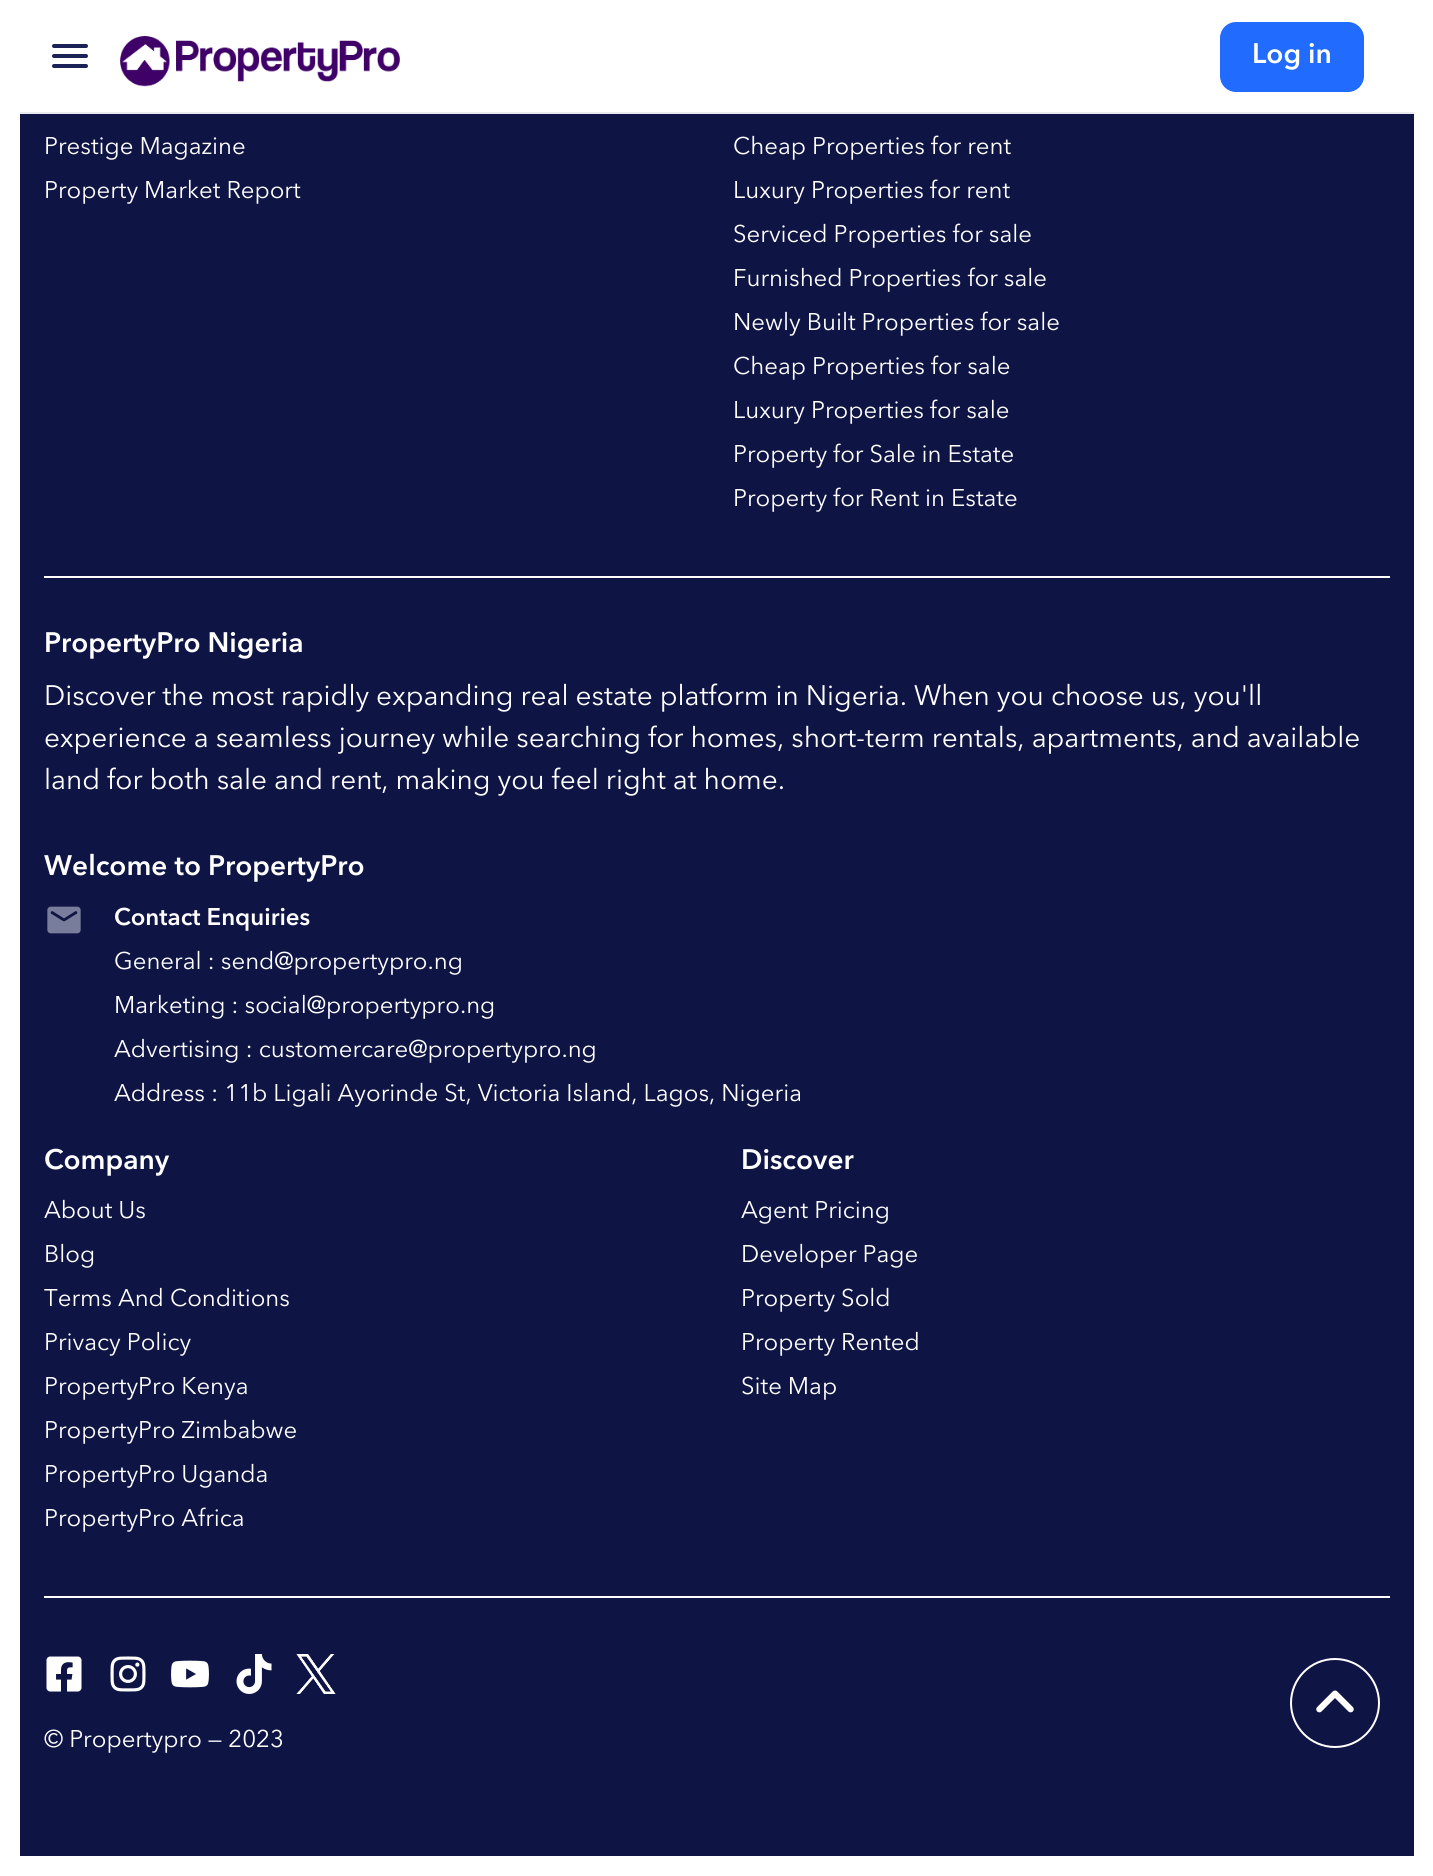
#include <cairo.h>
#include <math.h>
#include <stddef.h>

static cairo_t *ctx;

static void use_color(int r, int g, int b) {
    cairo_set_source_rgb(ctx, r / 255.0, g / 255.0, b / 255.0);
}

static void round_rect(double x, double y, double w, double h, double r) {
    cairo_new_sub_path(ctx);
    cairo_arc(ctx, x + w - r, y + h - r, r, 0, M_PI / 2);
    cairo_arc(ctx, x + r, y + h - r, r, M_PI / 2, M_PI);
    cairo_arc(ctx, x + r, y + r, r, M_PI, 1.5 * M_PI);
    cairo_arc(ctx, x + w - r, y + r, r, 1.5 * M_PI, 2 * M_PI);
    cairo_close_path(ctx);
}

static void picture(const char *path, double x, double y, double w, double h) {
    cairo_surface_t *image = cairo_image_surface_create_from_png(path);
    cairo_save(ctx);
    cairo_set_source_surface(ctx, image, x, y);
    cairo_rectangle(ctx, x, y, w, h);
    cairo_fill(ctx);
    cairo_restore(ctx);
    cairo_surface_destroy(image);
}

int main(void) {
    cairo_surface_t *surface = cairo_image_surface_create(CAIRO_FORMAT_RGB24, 1433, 1876);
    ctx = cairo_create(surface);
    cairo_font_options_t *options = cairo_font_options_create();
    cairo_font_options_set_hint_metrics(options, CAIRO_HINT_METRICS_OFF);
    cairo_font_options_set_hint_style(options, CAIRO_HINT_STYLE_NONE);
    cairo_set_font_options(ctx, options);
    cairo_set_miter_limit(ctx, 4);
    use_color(255, 255, 255);
    cairo_paint(ctx);
    use_color(234, 235, 240);
    cairo_rectangle(ctx, 20, 112, 1394, 2);
    cairo_fill(ctx);
    cairo_new_path(ctx);
    cairo_move_to(ctx, 54, 66);
    cairo_line_to(ctx, 86, 66);
    cairo_move_to(ctx, 54, 46);
    cairo_line_to(ctx, 86, 46);
    cairo_move_to(ctx, 54, 56);
    cairo_line_to(ctx, 86, 56);
    use_color(26, 34, 88);
    cairo_set_line_width(ctx, 4);
    cairo_set_line_cap(ctx, CAIRO_LINE_CAP_ROUND);
    cairo_stroke(ctx);
    picture("img1.png", 120, 36, 280, 51);
    use_color(33, 107, 255);
    round_rect(1221, 23, 142, 68, 15);
    cairo_fill_preserve(ctx);
    cairo_set_line_width(ctx, 2);
    cairo_set_line_cap(ctx, CAIRO_LINE_CAP_BUTT);
    cairo_stroke(ctx);
    cairo_select_font_face(ctx, "Avenir Next SemiBold", CAIRO_FONT_SLANT_NORMAL, CAIRO_FONT_WEIGHT_NORMAL);
    cairo_set_font_size(ctx, 28);
    use_color(255, 255, 255);
    cairo_move_to(ctx, 1252, 63);
    cairo_show_text(ctx, "Log in");
    use_color(14, 21, 69);
    cairo_rectangle(ctx, 20, 114, 1394, 1742);
    cairo_fill(ctx);
    use_color(255, 255, 255);
    cairo_rectangle(ctx, 44, 576, 1346, 2);
    cairo_fill(ctx);
    cairo_select_font_face(ctx, "Avenir Next", CAIRO_FONT_SLANT_NORMAL, CAIRO_FONT_WEIGHT_NORMAL);
    cairo_set_font_size(ctx, 24);
    cairo_move_to(ctx, 44, 154);
    cairo_show_text(ctx, "Prestige Magazine");
    cairo_move_to(ctx, 44, 198);
    cairo_show_text(ctx, "Property Market Report");
    cairo_move_to(ctx, 733, 154);
    cairo_show_text(ctx, "Cheap Properties for rent");
    cairo_move_to(ctx, 733, 198);
    cairo_show_text(ctx, "Luxury Properties for rent");
    cairo_move_to(ctx, 733, 242);
    cairo_show_text(ctx, "Serviced Properties for sale");
    cairo_move_to(ctx, 733, 286);
    cairo_show_text(ctx, "Furnished Properties for sale");
    cairo_move_to(ctx, 733, 330);
    cairo_show_text(ctx, "Newly Built Properties for sale");
    cairo_move_to(ctx, 733, 374);
    cairo_show_text(ctx, "Cheap Properties for sale");
    cairo_move_to(ctx, 733, 418);
    cairo_show_text(ctx, "Luxury Properties for sale");
    cairo_move_to(ctx, 733, 462);
    cairo_show_text(ctx, "Property for Sale in Estate");
    cairo_move_to(ctx, 733, 506);
    cairo_show_text(ctx, "Property for Rent in Estate");
    cairo_rectangle(ctx, 44, 1596, 1346, 2);
    cairo_fill(ctx);
    cairo_select_font_face(ctx, "Avenir Next SemiBold", CAIRO_FONT_SLANT_NORMAL, CAIRO_FONT_WEIGHT_NORMAL);
    cairo_set_font_size(ctx, 28);
    cairo_move_to(ctx, 44, 652);
    cairo_show_text(ctx, "PropertyPro Nigeria");
    cairo_select_font_face(ctx, "Avenir Next", CAIRO_FONT_SLANT_NORMAL, CAIRO_FONT_WEIGHT_NORMAL);
    cairo_move_to(ctx, 44, 705);
    cairo_show_text(ctx, "Discover the most rapidly expanding real estate platform in Nigeria. When you choose us, you'll");
    cairo_move_to(ctx, 44, 747);
    cairo_show_text(ctx, "experience a seamless journey while searching for homes, short-term rentals, apartments, and available");
    cairo_move_to(ctx, 44, 789);
    cairo_show_text(ctx, "land for both sale and rent, making you feel right at home.");
    cairo_select_font_face(ctx, "Avenir Next SemiBold", CAIRO_FONT_SLANT_NORMAL, CAIRO_FONT_WEIGHT_NORMAL);
    cairo_move_to(ctx, 44, 875);
    cairo_show_text(ctx, "Welcome to PropertyPro");
    picture("img2.png", 47, 906, 34, 28);
    cairo_set_font_size(ctx, 24);
    cairo_move_to(ctx, 114, 925);
    cairo_show_text(ctx, "Contact Enquiries");
    cairo_select_font_face(ctx, "Avenir Next", CAIRO_FONT_SLANT_NORMAL, CAIRO_FONT_WEIGHT_NORMAL);
    cairo_move_to(ctx, 114, 969);
    cairo_show_text(ctx, "General : send@propertypro.ng");
    cairo_move_to(ctx, 114, 1013);
    cairo_show_text(ctx, "Marketing : social@propertypro.ng");
    cairo_move_to(ctx, 114, 1057);
    cairo_show_text(ctx, "Advertising : customercare@propertypro.ng");
    cairo_move_to(ctx, 114, 1101);
    cairo_show_text(ctx, "Address : 11b Ligali Ayorinde St, Victoria Island, Lagos, Nigeria");
    cairo_select_font_face(ctx, "Avenir Next SemiBold", CAIRO_FONT_SLANT_NORMAL, CAIRO_FONT_WEIGHT_NORMAL);
    cairo_set_font_size(ctx, 28);
    cairo_move_to(ctx, 44, 1169);
    cairo_show_text(ctx, "Company");
    cairo_select_font_face(ctx, "Avenir Next", CAIRO_FONT_SLANT_NORMAL, CAIRO_FONT_WEIGHT_NORMAL);
    cairo_set_font_size(ctx, 24);
    cairo_move_to(ctx, 44, 1218);
    cairo_show_text(ctx, "About Us");
    cairo_move_to(ctx, 44, 1262);
    cairo_show_text(ctx, "Blog");
    cairo_move_to(ctx, 44, 1306);
    cairo_show_text(ctx, "Terms And Conditions");
    cairo_move_to(ctx, 44, 1350);
    cairo_show_text(ctx, "Privacy Policy");
    cairo_move_to(ctx, 44, 1394);
    cairo_show_text(ctx, "PropertyPro Kenya");
    cairo_move_to(ctx, 44, 1438);
    cairo_show_text(ctx, "PropertyPro Zimbabwe");
    cairo_move_to(ctx, 44, 1482);
    cairo_show_text(ctx, "PropertyPro Uganda");
    cairo_move_to(ctx, 44, 1526);
    cairo_show_text(ctx, "PropertyPro Africa");
    cairo_select_font_face(ctx, "Avenir Next SemiBold", CAIRO_FONT_SLANT_NORMAL, CAIRO_FONT_WEIGHT_NORMAL);
    cairo_set_font_size(ctx, 28);
    cairo_move_to(ctx, 741, 1169);
    cairo_show_text(ctx, "Discover");
    cairo_select_font_face(ctx, "Avenir Next", CAIRO_FONT_SLANT_NORMAL, CAIRO_FONT_WEIGHT_NORMAL);
    cairo_set_font_size(ctx, 24);
    cairo_move_to(ctx, 741, 1218);
    cairo_show_text(ctx, "Agent Pricing");
    cairo_move_to(ctx, 741, 1262);
    cairo_show_text(ctx, "Developer Page");
    cairo_move_to(ctx, 741, 1306);
    cairo_show_text(ctx, "Property Sold");
    cairo_move_to(ctx, 741, 1350);
    cairo_show_text(ctx, "Property Rented");
    cairo_move_to(ctx, 741, 1394);
    cairo_show_text(ctx, "Site Map");
    picture("img3.png", 46, 1656, 36, 36);
    picture("img4.png", 110, 1656, 36, 36);
    picture("img5.png", 171, 1660, 38, 28);
    picture("img6.png", 236, 1654, 36, 40);
    picture("img7.png", 296, 1654, 40, 40);
    cairo_move_to(ctx, 44, 1747);
    cairo_show_text(ctx, "© Propertypro — 2023");
    cairo_new_path(ctx);
    cairo_arc(ctx, 1335, 1703, 44, 0, 2 * M_PI);
    cairo_stroke(ctx);
    picture("img8.png", 1316, 1690, 38, 23);
    cairo_surface_write_to_png(surface, "result.png");
    cairo_font_options_destroy(options);
    cairo_destroy(ctx);
    cairo_surface_destroy(surface);
    return 0;
}
